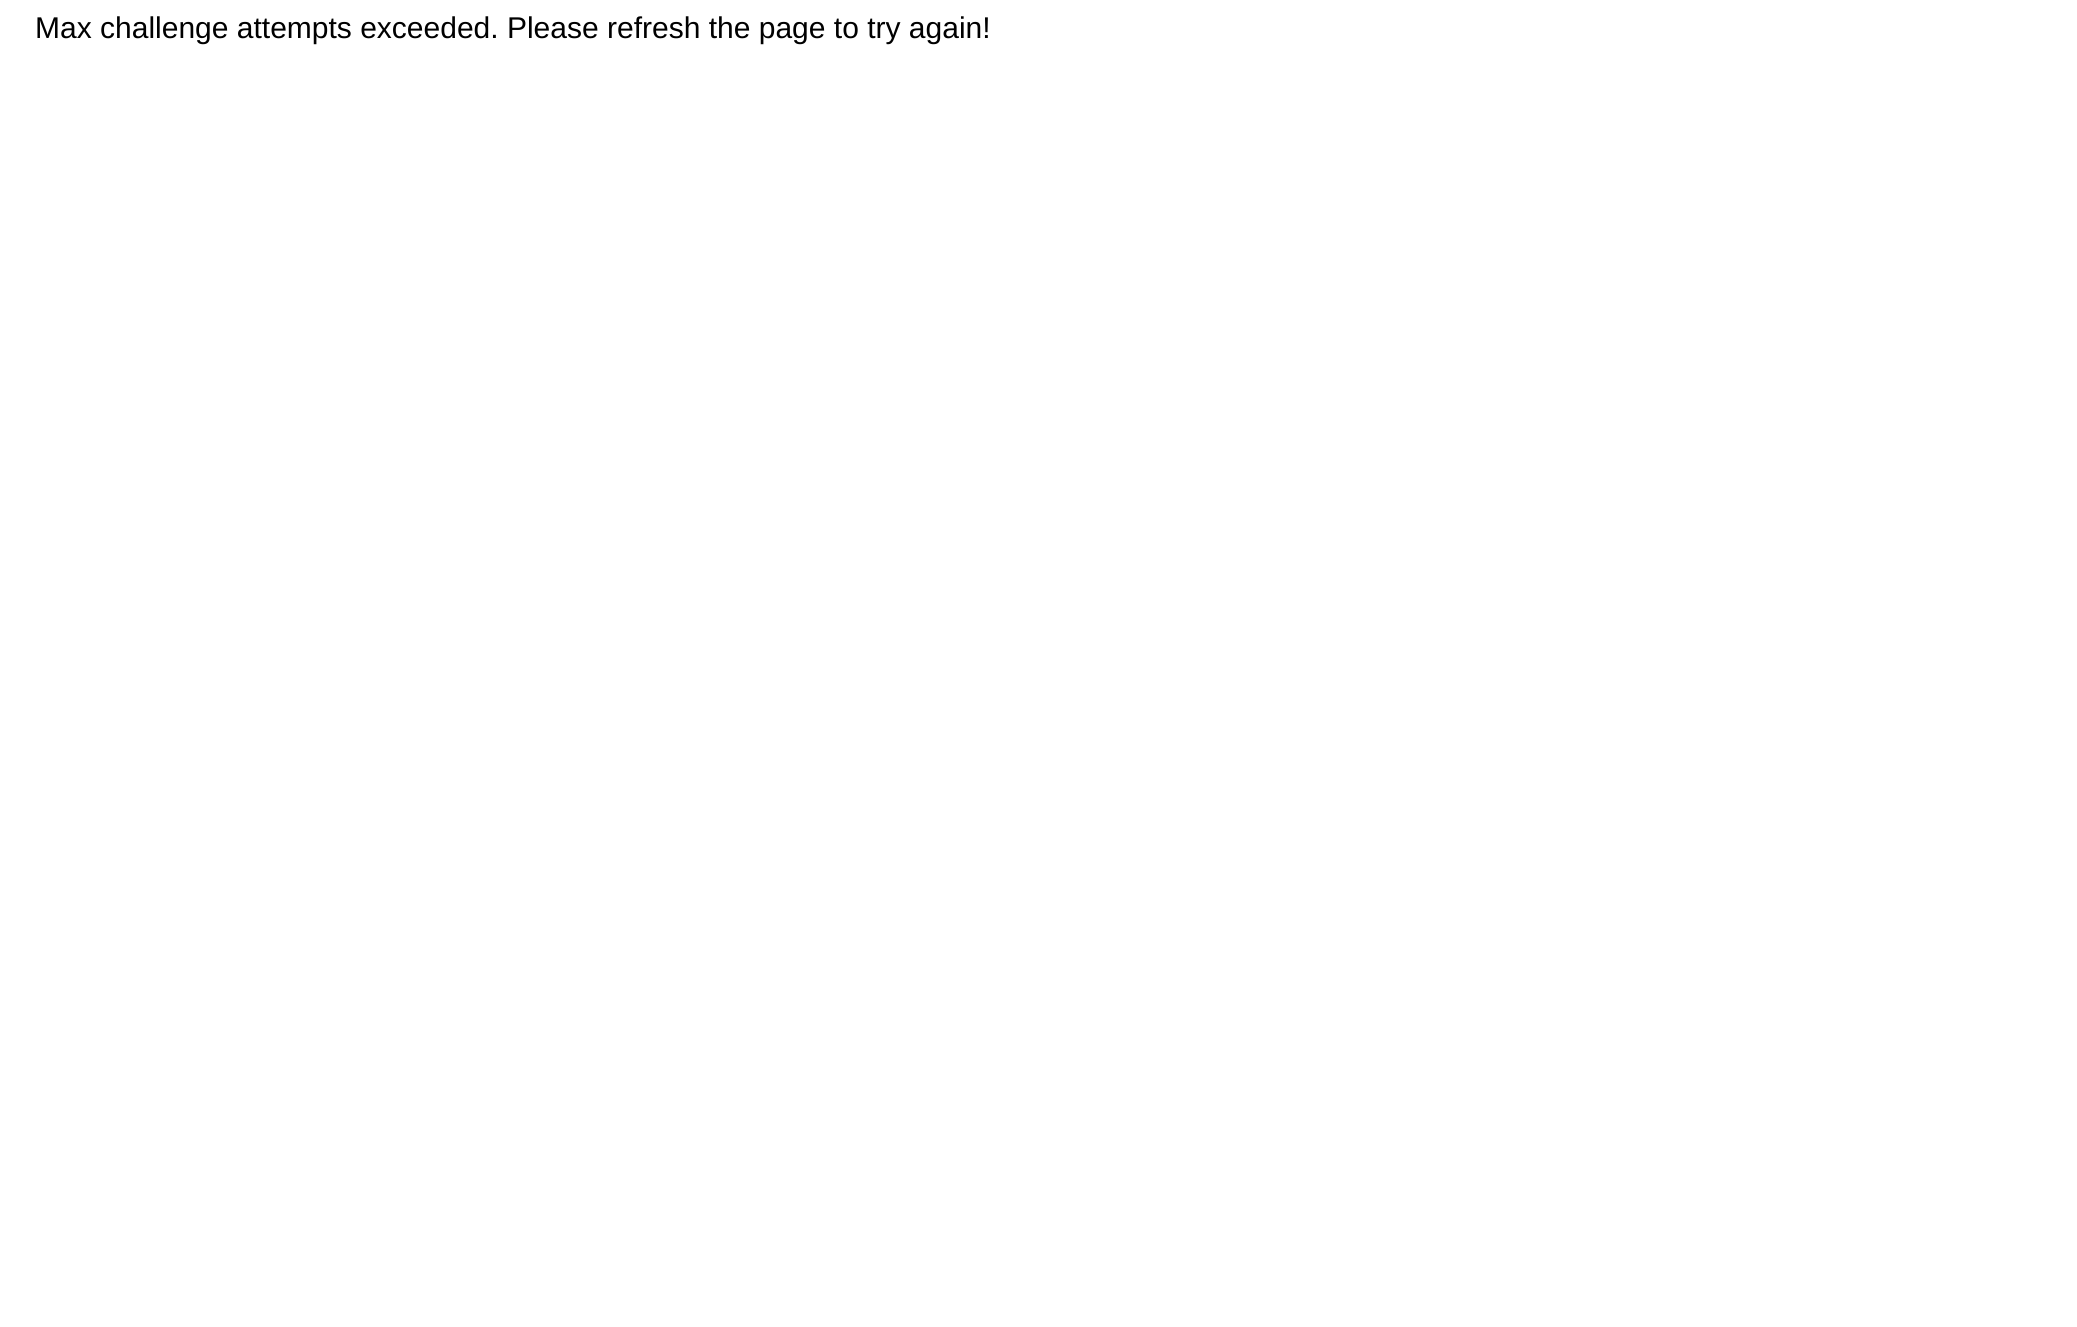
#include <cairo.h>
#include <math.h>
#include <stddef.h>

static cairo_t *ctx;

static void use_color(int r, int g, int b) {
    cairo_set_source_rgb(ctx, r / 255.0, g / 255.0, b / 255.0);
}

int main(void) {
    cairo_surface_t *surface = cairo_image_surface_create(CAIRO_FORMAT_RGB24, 2077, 1327);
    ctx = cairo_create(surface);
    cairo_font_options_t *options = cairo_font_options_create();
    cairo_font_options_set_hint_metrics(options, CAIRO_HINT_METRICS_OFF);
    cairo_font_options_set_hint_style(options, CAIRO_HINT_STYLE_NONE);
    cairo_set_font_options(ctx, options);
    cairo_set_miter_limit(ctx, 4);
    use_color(255, 255, 255);
    cairo_paint(ctx);
    cairo_select_font_face(ctx, "Liberation Sans", CAIRO_FONT_SLANT_NORMAL, CAIRO_FONT_WEIGHT_NORMAL);
    cairo_set_font_size(ctx, 30);
    use_color(0, 0, 0);
    cairo_move_to(ctx, 35, 38);
    cairo_show_text(ctx, "Max challenge attempts exceeded. Please refresh the page to try again!");
    cairo_surface_write_to_png(surface, "result.png");
    cairo_font_options_destroy(options);
    cairo_destroy(ctx);
    cairo_surface_destroy(surface);
    return 0;
}
